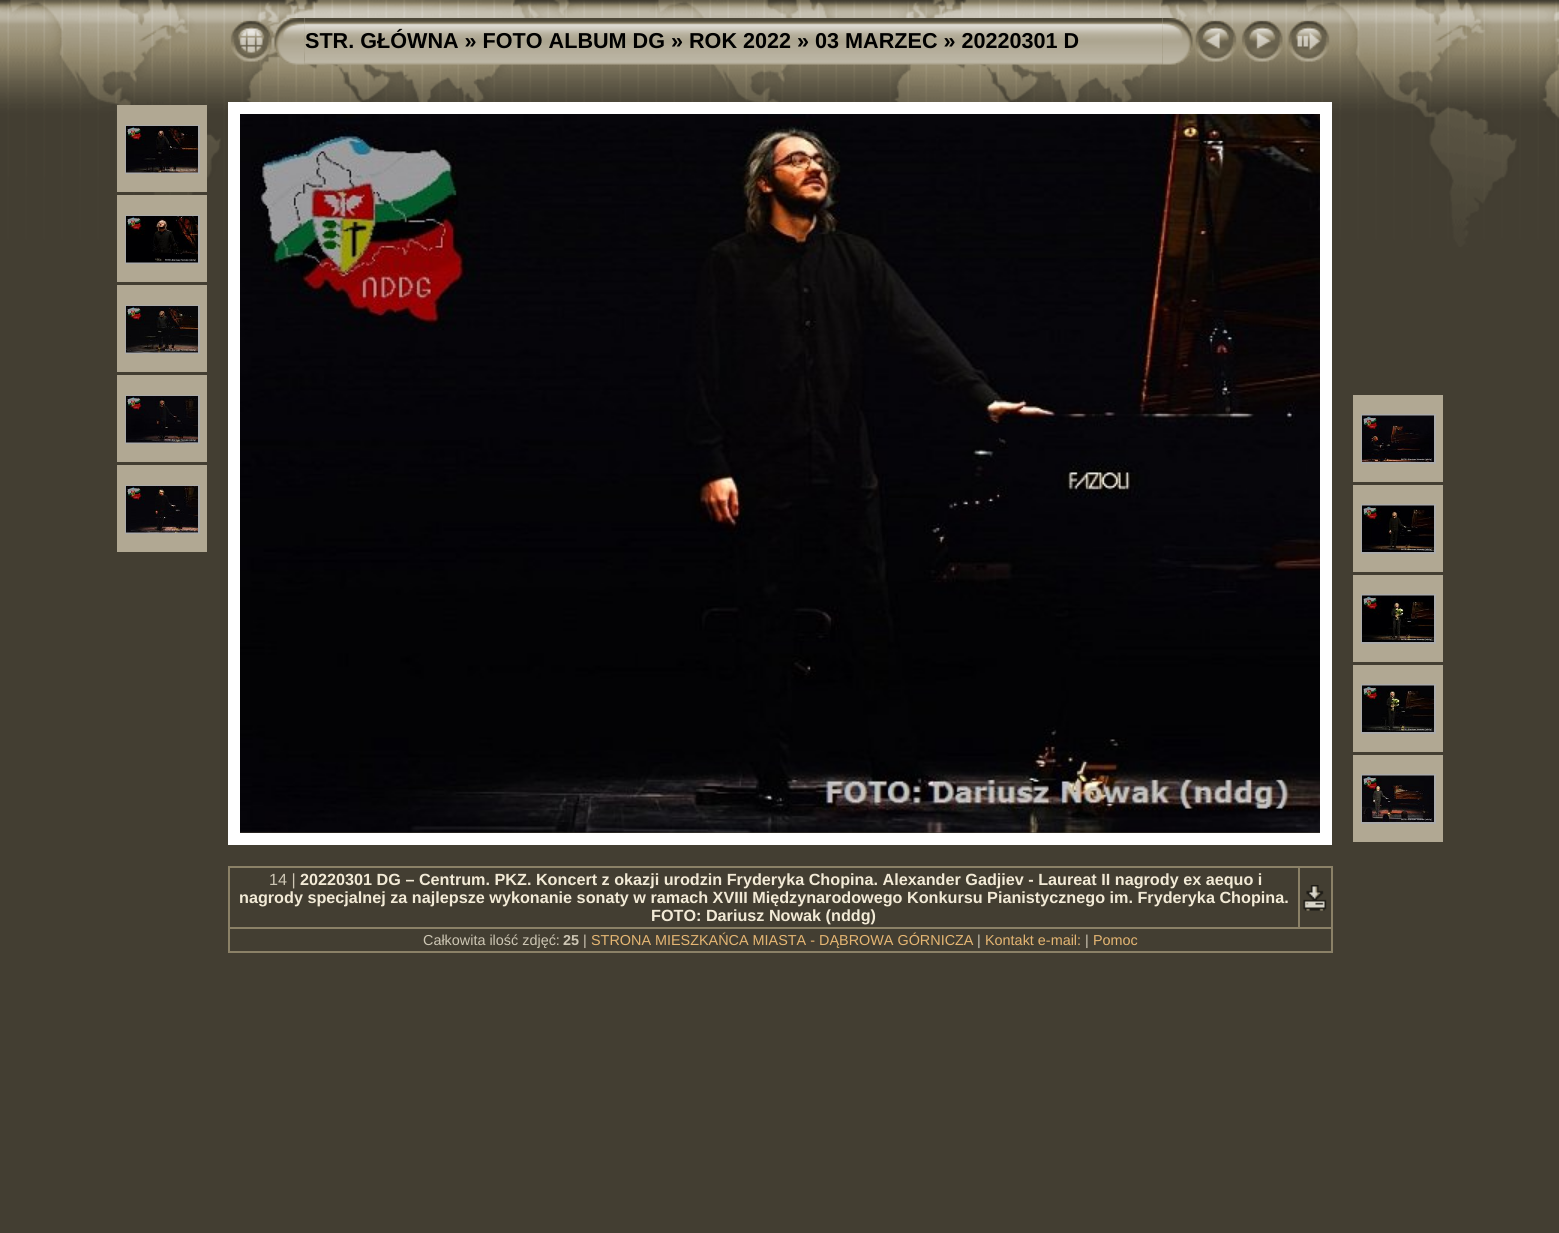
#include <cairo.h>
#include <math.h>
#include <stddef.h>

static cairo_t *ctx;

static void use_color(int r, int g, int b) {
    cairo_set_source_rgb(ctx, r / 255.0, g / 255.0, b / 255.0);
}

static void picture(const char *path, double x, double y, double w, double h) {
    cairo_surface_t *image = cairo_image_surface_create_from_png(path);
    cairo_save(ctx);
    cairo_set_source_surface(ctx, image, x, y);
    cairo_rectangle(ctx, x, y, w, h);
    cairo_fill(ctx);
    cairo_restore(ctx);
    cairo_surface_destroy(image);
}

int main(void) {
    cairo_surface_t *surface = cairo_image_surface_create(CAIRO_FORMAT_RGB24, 1559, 1233);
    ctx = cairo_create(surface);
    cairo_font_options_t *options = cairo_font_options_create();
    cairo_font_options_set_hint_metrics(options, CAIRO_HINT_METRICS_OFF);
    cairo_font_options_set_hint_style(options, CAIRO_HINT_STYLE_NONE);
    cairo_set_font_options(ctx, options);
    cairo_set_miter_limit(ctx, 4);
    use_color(67, 62, 50);
    cairo_paint(ctx);
    picture("img1.png", 0, 0, 1559, 247);
    picture("img2.png", 230, 20, 42, 42);
    picture("img4.png", 304, 18, 859, 47);
    picture("img3.png", 274, 18, 31, 47);
    cairo_select_font_face(ctx, "Liberation Sans", CAIRO_FONT_SLANT_NORMAL, CAIRO_FONT_WEIGHT_BOLD);
    cairo_set_font_size(ctx, 21.6);
    use_color(0, 0, 0);
    cairo_move_to(ctx, 305, 48);
    cairo_show_text(ctx, "STR. GŁÓWNA » FOTO ALBUM DG » ROK 2022 » 03 MARZEC » 20220301 D");
    picture("img5.png", 1162, 18, 31, 47);
    picture("img6.png", 1195, 20, 42, 42);
    picture("img7.png", 1241, 20, 42, 42);
    picture("img8.png", 1288, 20, 42, 42);
    use_color(177, 168, 147);
    cairo_rectangle(ctx, 117, 105, 90, 87);
    cairo_fill(ctx);
    cairo_rectangle(ctx, 126, 126, 73, 47);
    use_color(170, 170, 170);
    cairo_stroke(ctx);
    picture("img9.png", 126, 126, 72, 47);
    use_color(177, 168, 147);
    cairo_rectangle(ctx, 117, 195, 90, 87);
    cairo_fill(ctx);
    cairo_rectangle(ctx, 126, 216, 73, 47);
    use_color(170, 170, 170);
    cairo_stroke(ctx);
    picture("img10.png", 126, 216, 72, 47);
    use_color(177, 168, 147);
    cairo_rectangle(ctx, 117, 285, 90, 87);
    cairo_fill(ctx);
    cairo_rectangle(ctx, 126, 306, 73, 47);
    use_color(170, 170, 170);
    cairo_stroke(ctx);
    picture("img11.png", 126, 306, 72, 47);
    use_color(177, 168, 147);
    cairo_rectangle(ctx, 117, 375, 90, 87);
    cairo_fill(ctx);
    cairo_rectangle(ctx, 126, 396, 73, 47);
    use_color(170, 170, 170);
    cairo_stroke(ctx);
    picture("img12.png", 126, 396, 72, 47);
    use_color(177, 168, 147);
    cairo_rectangle(ctx, 117, 465, 90, 87);
    cairo_fill(ctx);
    cairo_rectangle(ctx, 126, 486, 73, 47);
    use_color(170, 170, 170);
    cairo_stroke(ctx);
    picture("img13.png", 126, 486, 72, 47);
    cairo_rectangle(ctx, 234, 108, 1092, 731);
    use_color(255, 255, 255);
    cairo_set_line_width(ctx, 12);
    cairo_stroke(ctx);
    picture("img14.png", 240, 114, 1080, 719);
    use_color(177, 168, 147);
    cairo_rectangle(ctx, 1353, 395, 90, 87);
    cairo_fill(ctx);
    cairo_rectangle(ctx, 1362, 415, 73, 48);
    use_color(170, 170, 170);
    cairo_set_line_width(ctx, 2);
    cairo_stroke(ctx);
    picture("img15.png", 1362, 415, 72, 47);
    use_color(177, 168, 147);
    cairo_rectangle(ctx, 1353, 485, 90, 87);
    cairo_fill(ctx);
    cairo_rectangle(ctx, 1362, 505, 73, 48);
    use_color(170, 170, 170);
    cairo_stroke(ctx);
    picture("img16.png", 1362, 505, 72, 47);
    use_color(177, 168, 147);
    cairo_rectangle(ctx, 1353, 575, 90, 87);
    cairo_fill(ctx);
    cairo_rectangle(ctx, 1362, 595, 73, 48);
    use_color(170, 170, 170);
    cairo_stroke(ctx);
    picture("img17.png", 1362, 595, 72, 47);
    use_color(177, 168, 147);
    cairo_rectangle(ctx, 1353, 665, 90, 87);
    cairo_fill(ctx);
    cairo_rectangle(ctx, 1362, 685, 73, 48);
    use_color(170, 170, 170);
    cairo_stroke(ctx);
    picture("img18.png", 1362, 685, 72, 47);
    use_color(177, 168, 147);
    cairo_rectangle(ctx, 1353, 755, 90, 87);
    cairo_fill(ctx);
    cairo_rectangle(ctx, 1362, 775, 73, 48);
    use_color(170, 170, 170);
    cairo_stroke(ctx);
    picture("img19.png", 1362, 775, 72, 47);
    use_color(139, 129, 103);
    cairo_rectangle(ctx, 1298, 866, 34, 2);
    cairo_fill(ctx);
    cairo_rectangle(ctx, 228, 927, 1104, 2);
    cairo_fill(ctx);
    cairo_rectangle(ctx, 1298, 866, 2, 63);
    cairo_fill(ctx);
    cairo_rectangle(ctx, 228, 866, 1071, 2);
    cairo_fill(ctx);
    cairo_rectangle(ctx, 1331, 927, 2, 26);
    cairo_fill(ctx);
    cairo_rectangle(ctx, 228, 951, 1104, 2);
    cairo_fill(ctx);
    cairo_rectangle(ctx, 228, 927, 2, 26);
    cairo_fill(ctx);
    cairo_rectangle(ctx, 228, 866, 2, 63);
    cairo_fill(ctx);
    cairo_select_font_face(ctx, "Liberation Sans", CAIRO_FONT_SLANT_NORMAL, CAIRO_FONT_WEIGHT_NORMAL);
    cairo_set_font_size(ctx, 16.2);
    use_color(205, 198, 180);
    cairo_move_to(ctx, 269, 885);
    cairo_show_text(ctx, "14 |");
    cairo_select_font_face(ctx, "Liberation Sans", CAIRO_FONT_SLANT_NORMAL, CAIRO_FONT_WEIGHT_BOLD);
    use_color(242, 234, 214);
    cairo_move_to(ctx, 300, 885);
    cairo_show_text(ctx, "20220301 DG – Centrum. PKZ. Koncert z okazji urodzin Fryderyka Chopina. Alexander Gadjiev - Laureat II nagrody ex aequo i");
    cairo_move_to(ctx, 239, 903);
    cairo_show_text(ctx, "nagrody specjalnej za najlepsze wykonanie sonaty w ramach XVIII Międzynarodowego Konkursu Pianistycznego im. Fryderyka Chopina.");
    cairo_move_to(ctx, 651, 921);
    cairo_show_text(ctx, "FOTO: Dariusz Nowak (nddg)");
    use_color(139, 129, 103);
    cairo_rectangle(ctx, 1331, 866, 2, 63);
    cairo_fill(ctx);
    picture("img20.png", 1303, 885, 24, 26);
    cairo_select_font_face(ctx, "Liberation Sans", CAIRO_FONT_SLANT_NORMAL, CAIRO_FONT_WEIGHT_NORMAL);
    cairo_set_font_size(ctx, 14.4);
    use_color(205, 198, 180);
    cairo_move_to(ctx, 423, 945);
    cairo_show_text(ctx, "Całkowita ilość zdjęć:");
    cairo_select_font_face(ctx, "Liberation Sans", CAIRO_FONT_SLANT_NORMAL, CAIRO_FONT_WEIGHT_BOLD);
    cairo_move_to(ctx, 563, 945);
    cairo_show_text(ctx, "25");
    cairo_select_font_face(ctx, "Liberation Sans", CAIRO_FONT_SLANT_NORMAL, CAIRO_FONT_WEIGHT_NORMAL);
    cairo_move_to(ctx, 583, 945);
    cairo_show_text(ctx, "|");
    use_color(229, 182, 115);
    cairo_move_to(ctx, 591, 945);
    cairo_show_text(ctx, "STRONA MIESZKAŃCA MIASTA - DĄBROWA GÓRNICZA");
    use_color(205, 198, 180);
    cairo_move_to(ctx, 977, 945);
    cairo_show_text(ctx, "|");
    use_color(229, 182, 115);
    cairo_move_to(ctx, 985, 945);
    cairo_show_text(ctx, "Kontakt e-mail:");
    use_color(205, 198, 180);
    cairo_move_to(ctx, 1085, 945);
    cairo_show_text(ctx, "|");
    use_color(229, 182, 115);
    cairo_move_to(ctx, 1093, 945);
    cairo_show_text(ctx, "Pomoc");
    cairo_surface_write_to_png(surface, "result.png");
    cairo_font_options_destroy(options);
    cairo_destroy(ctx);
    cairo_surface_destroy(surface);
    return 0;
}
